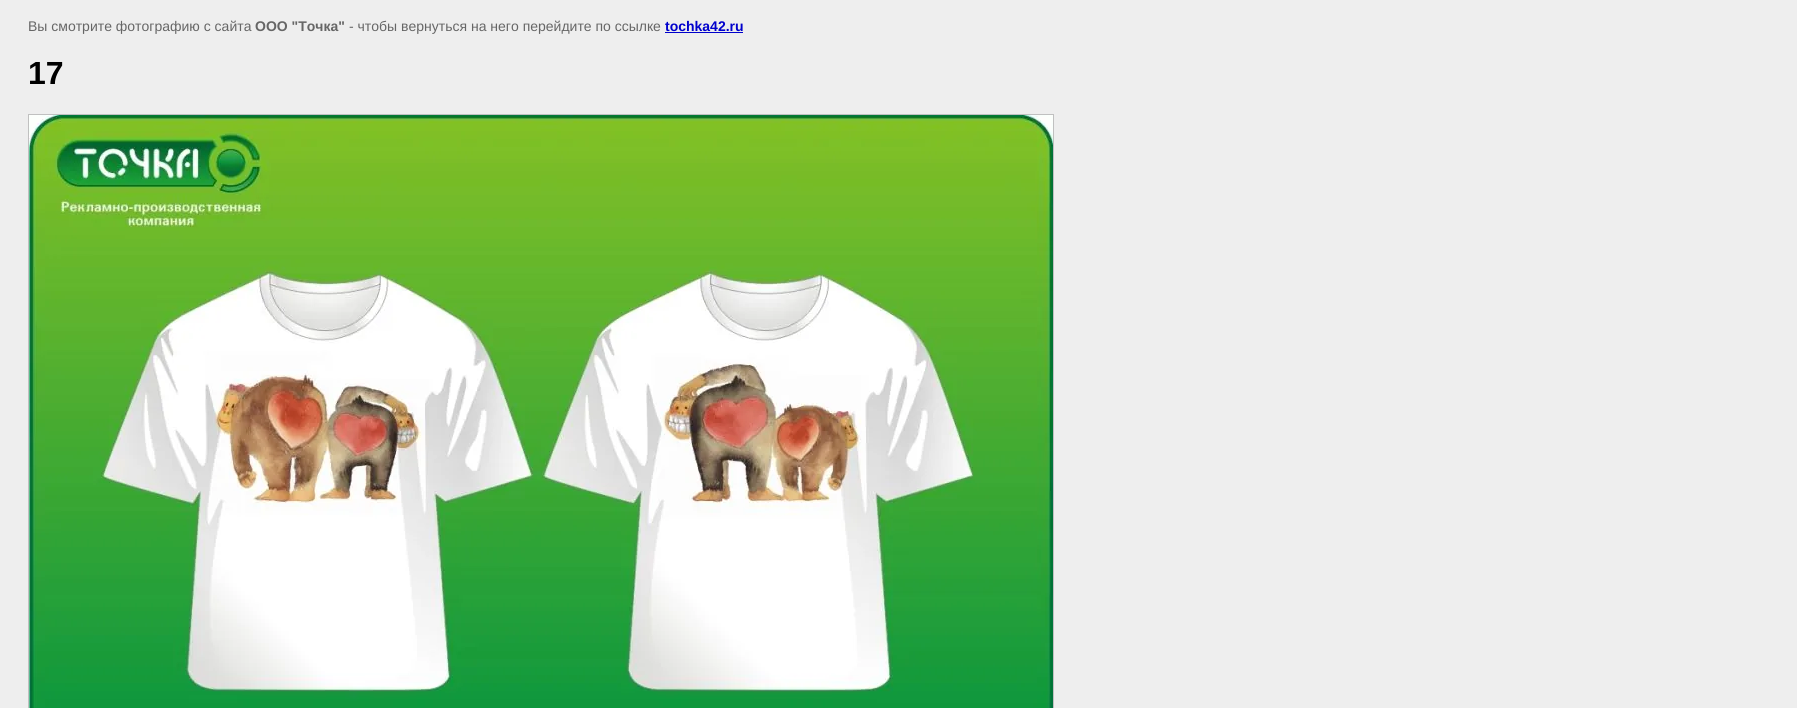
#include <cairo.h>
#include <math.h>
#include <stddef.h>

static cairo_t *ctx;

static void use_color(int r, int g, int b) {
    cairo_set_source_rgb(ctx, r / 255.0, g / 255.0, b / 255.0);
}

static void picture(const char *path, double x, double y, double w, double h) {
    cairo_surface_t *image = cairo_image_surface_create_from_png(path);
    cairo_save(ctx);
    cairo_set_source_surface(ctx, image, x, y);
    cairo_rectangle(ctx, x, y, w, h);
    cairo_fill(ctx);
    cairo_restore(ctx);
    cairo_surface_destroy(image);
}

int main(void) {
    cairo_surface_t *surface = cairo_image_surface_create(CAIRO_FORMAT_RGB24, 1797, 708);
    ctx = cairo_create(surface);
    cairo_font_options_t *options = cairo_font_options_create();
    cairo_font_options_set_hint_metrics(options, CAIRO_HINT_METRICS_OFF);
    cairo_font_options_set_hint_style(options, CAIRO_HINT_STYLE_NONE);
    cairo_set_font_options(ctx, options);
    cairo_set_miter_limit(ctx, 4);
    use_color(238, 238, 238);
    cairo_paint(ctx);
    cairo_select_font_face(ctx, "Liberation Sans", CAIRO_FONT_SLANT_NORMAL, CAIRO_FONT_WEIGHT_NORMAL);
    cairo_set_font_size(ctx, 14);
    use_color(102, 102, 102);
    cairo_move_to(ctx, 28, 31);
    cairo_show_text(ctx, "Вы смотрите фотографию с сайта");
    cairo_select_font_face(ctx, "Liberation Sans", CAIRO_FONT_SLANT_NORMAL, CAIRO_FONT_WEIGHT_BOLD);
    cairo_move_to(ctx, 255, 31);
    cairo_show_text(ctx, "ООО \"Точка\"");
    cairo_select_font_face(ctx, "Liberation Sans", CAIRO_FONT_SLANT_NORMAL, CAIRO_FONT_WEIGHT_NORMAL);
    cairo_move_to(ctx, 349, 31);
    cairo_show_text(ctx, "- чтобы вернуться на него перейдите по ссылке");
    cairo_select_font_face(ctx, "Liberation Sans", CAIRO_FONT_SLANT_NORMAL, CAIRO_FONT_WEIGHT_BOLD);
    use_color(0, 0, 204);
    cairo_move_to(ctx, 665, 31);
    cairo_show_text(ctx, "tochka42.ru");
    cairo_rectangle(ctx, 665, 32, 78, 1);
    cairo_fill(ctx);
    cairo_set_font_size(ctx, 32);
    use_color(0, 0, 0);
    cairo_move_to(ctx, 28, 84);
    cairo_show_text(ctx, "17");
    cairo_rectangle(ctx, 28.5, 114.5, 1025, 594);
    use_color(192, 192, 192);
    cairo_set_line_width(ctx, 1);
    cairo_stroke(ctx);
    picture("img1.png", 29, 115, 1024, 593);
    cairo_surface_write_to_png(surface, "result.png");
    cairo_font_options_destroy(options);
    cairo_destroy(ctx);
    cairo_surface_destroy(surface);
    return 0;
}
